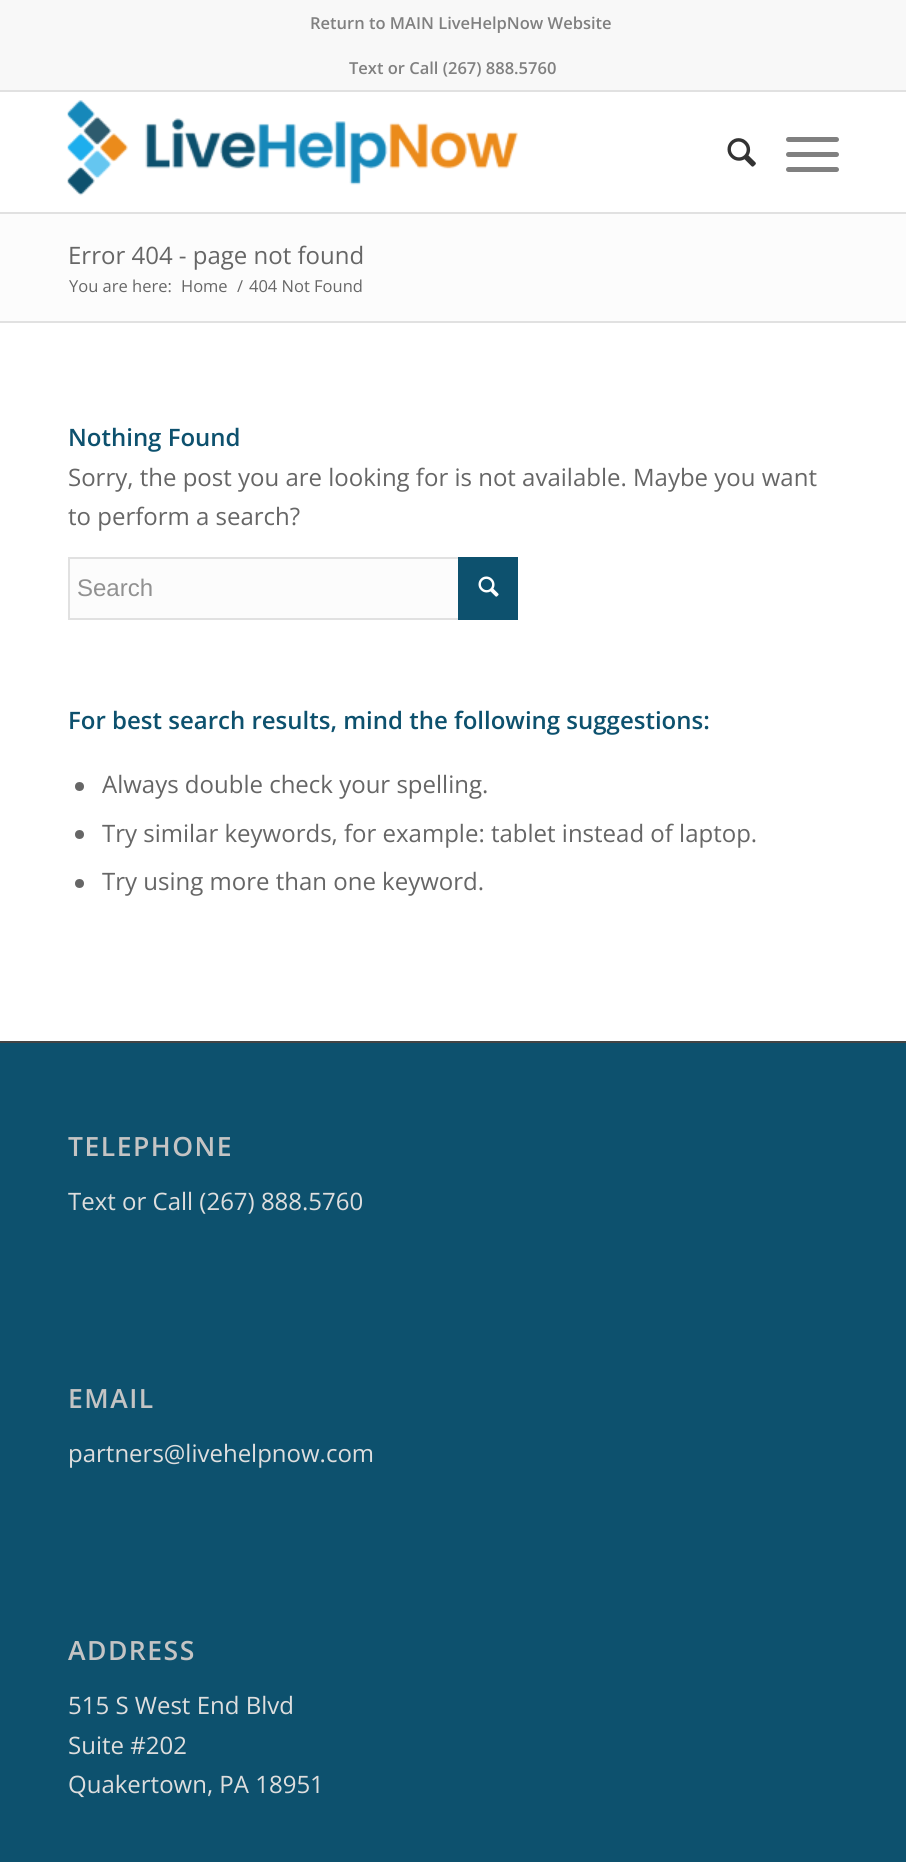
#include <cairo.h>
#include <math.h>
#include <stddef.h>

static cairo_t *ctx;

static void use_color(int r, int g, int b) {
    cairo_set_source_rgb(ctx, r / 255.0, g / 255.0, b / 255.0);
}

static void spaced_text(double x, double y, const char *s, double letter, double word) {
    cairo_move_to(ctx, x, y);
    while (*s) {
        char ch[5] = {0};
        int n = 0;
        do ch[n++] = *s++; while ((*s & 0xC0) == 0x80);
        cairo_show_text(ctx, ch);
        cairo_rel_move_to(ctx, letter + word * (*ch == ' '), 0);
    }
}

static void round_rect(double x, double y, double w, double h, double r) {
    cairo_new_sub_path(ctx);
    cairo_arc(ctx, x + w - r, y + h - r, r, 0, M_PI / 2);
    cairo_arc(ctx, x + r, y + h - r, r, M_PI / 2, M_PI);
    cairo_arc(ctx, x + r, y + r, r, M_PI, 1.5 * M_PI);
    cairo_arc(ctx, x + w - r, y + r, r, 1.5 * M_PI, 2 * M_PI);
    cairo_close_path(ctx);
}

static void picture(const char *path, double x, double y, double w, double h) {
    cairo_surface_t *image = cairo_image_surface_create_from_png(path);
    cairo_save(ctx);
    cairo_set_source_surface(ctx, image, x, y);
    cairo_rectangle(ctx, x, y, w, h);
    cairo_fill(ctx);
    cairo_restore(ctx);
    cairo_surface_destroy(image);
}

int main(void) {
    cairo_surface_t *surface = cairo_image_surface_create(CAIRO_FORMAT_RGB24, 906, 1862);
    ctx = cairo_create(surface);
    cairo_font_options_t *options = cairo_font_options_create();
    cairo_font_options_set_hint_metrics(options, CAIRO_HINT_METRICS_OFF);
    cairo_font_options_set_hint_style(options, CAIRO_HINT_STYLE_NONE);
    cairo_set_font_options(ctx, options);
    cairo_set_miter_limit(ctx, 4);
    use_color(255, 255, 255);
    cairo_paint(ctx);
    use_color(248, 248, 248);
    cairo_rectangle(ctx, 0, 0, 906, 90);
    cairo_fill(ctx);
    use_color(225, 225, 225);
    cairo_rectangle(ctx, 0, 90, 906, 2);
    cairo_fill(ctx);
    cairo_select_font_face(ctx, "Open Sans SemiBold", CAIRO_FONT_SLANT_NORMAL, CAIRO_FONT_WEIGHT_NORMAL);
    cairo_set_font_size(ctx, 16.5);
    use_color(128, 128, 128);
    cairo_move_to(ctx, 310, 29);
    cairo_show_text(ctx, "Return to MAIN LiveHelpNow Website");
    cairo_move_to(ctx, 349, 74);
    cairo_show_text(ctx, "Text or Call (267) 888.5760");
    use_color(225, 225, 225);
    cairo_rectangle(ctx, 0, 212, 906, 2);
    cairo_fill(ctx);
    picture("img1.png", 67, 100, 451, 96);
    picture("img2.png", 727, 138, 29, 29);
    use_color(128, 128, 128);
    round_rect(786, 152, 53, 5, 2.5);
    cairo_fill(ctx);
    round_rect(786, 137, 53, 5, 2.5);
    cairo_fill(ctx);
    round_rect(786, 167, 53, 5, 2.5);
    cairo_fill(ctx);
    use_color(252, 252, 252);
    cairo_rectangle(ctx, 0, 214, 906, 107);
    cairo_fill(ctx);
    cairo_select_font_face(ctx, "Open Sans", CAIRO_FONT_SLANT_NORMAL, CAIRO_FONT_WEIGHT_NORMAL);
    cairo_set_font_size(ctx, 24);
    use_color(102, 102, 102);
    cairo_move_to(ctx, 68, 264);
    cairo_show_text(ctx, "Error 404 - page not found");
    cairo_set_font_size(ctx, 16.5);
    cairo_move_to(ctx, 69, 292);
    cairo_show_text(ctx, "You are here:");
    cairo_move_to(ctx, 181, 292);
    cairo_show_text(ctx, "Home");
    cairo_move_to(ctx, 237, 292);
    cairo_show_text(ctx, "/");
    cairo_move_to(ctx, 249, 292);
    cairo_show_text(ctx, "404 Not Found");
    use_color(225, 225, 225);
    cairo_rectangle(ctx, 0, 321, 906, 2);
    cairo_fill(ctx);
    cairo_select_font_face(ctx, "Open Sans SemiBold", CAIRO_FONT_SLANT_NORMAL, CAIRO_FONT_WEIGHT_NORMAL);
    cairo_set_font_size(ctx, 24);
    use_color(13, 81, 110);
    cairo_move_to(ctx, 68, 446);
    cairo_show_text(ctx, "Nothing Found");
    cairo_select_font_face(ctx, "Open Sans", CAIRO_FONT_SLANT_NORMAL, CAIRO_FONT_WEIGHT_NORMAL);
    use_color(102, 102, 102);
    cairo_move_to(ctx, 68, 486);
    cairo_show_text(ctx, "Sorry, the post you are looking for is not available. Maybe you want");
    cairo_move_to(ctx, 68, 525);
    cairo_show_text(ctx, "to perform a search?");
    use_color(252, 252, 252);
    cairo_rectangle(ctx, 70, 559, 388, 59);
    cairo_fill(ctx);
    cairo_rectangle(ctx, 69, 558, 448, 61);
    use_color(225, 225, 225);
    cairo_stroke(ctx);
    cairo_select_font_face(ctx, "Liberation Sans", CAIRO_FONT_SLANT_NORMAL, CAIRO_FONT_WEIGHT_NORMAL);
    use_color(145, 145, 145);
    cairo_move_to(ctx, 77, 596);
    cairo_show_text(ctx, "Search");
    use_color(13, 81, 110);
    cairo_rectangle(ctx, 458, 557, 60, 63);
    cairo_fill(ctx);
    picture("img3.png", 478, 576, 21, 21);
    cairo_select_font_face(ctx, "Open Sans SemiBold", CAIRO_FONT_SLANT_NORMAL, CAIRO_FONT_WEIGHT_NORMAL);
    cairo_move_to(ctx, 68, 729);
    cairo_show_text(ctx, "For best search results, mind the following suggestions:");
    use_color(102, 102, 102);
    cairo_new_path(ctx);
    cairo_arc(ctx, 79.5, 786.5, 4.5, 0, 2 * M_PI);
    cairo_fill(ctx);
    cairo_select_font_face(ctx, "Open Sans", CAIRO_FONT_SLANT_NORMAL, CAIRO_FONT_WEIGHT_NORMAL);
    cairo_move_to(ctx, 102, 793);
    cairo_show_text(ctx, "Always double check your spelling.");
    cairo_new_path(ctx);
    cairo_arc(ctx, 79.5, 834.5, 4.5, 0, 2 * M_PI);
    cairo_fill(ctx);
    cairo_move_to(ctx, 102, 842);
    cairo_show_text(ctx, "Try similar keywords, for example: tablet instead of laptop.");
    cairo_new_path(ctx);
    cairo_arc(ctx, 79.5, 883.5, 4.5, 0, 2 * M_PI);
    cairo_fill(ctx);
    cairo_move_to(ctx, 102, 890);
    cairo_show_text(ctx, "Try using more than one keyword.");
    use_color(13, 81, 110);
    cairo_rectangle(ctx, 0, 1043, 906, 819);
    cairo_fill(ctx);
    use_color(68, 68, 68);
    cairo_rectangle(ctx, 0, 1041, 906, 2);
    cairo_fill(ctx);
    cairo_select_font_face(ctx, "Open Sans SemiBold", CAIRO_FONT_SLANT_NORMAL, CAIRO_FONT_WEIGHT_NORMAL);
    cairo_set_font_size(ctx, 26.5);
    use_color(196, 196, 196);
    spaced_text(68, 1156, "TELEPHONE", 1.5, 0);
    cairo_select_font_face(ctx, "Open Sans", CAIRO_FONT_SLANT_NORMAL, CAIRO_FONT_WEIGHT_NORMAL);
    cairo_set_font_size(ctx, 24);
    use_color(222, 222, 222);
    cairo_move_to(ctx, 68, 1210);
    cairo_show_text(ctx, "Text or Call (267) 888.5760");
    cairo_select_font_face(ctx, "Open Sans SemiBold", CAIRO_FONT_SLANT_NORMAL, CAIRO_FONT_WEIGHT_NORMAL);
    cairo_set_font_size(ctx, 26.5);
    use_color(196, 196, 196);
    spaced_text(68, 1408, "EMAIL", 1.5, 0);
    cairo_select_font_face(ctx, "Open Sans", CAIRO_FONT_SLANT_NORMAL, CAIRO_FONT_WEIGHT_NORMAL);
    cairo_set_font_size(ctx, 24);
    use_color(222, 222, 222);
    cairo_move_to(ctx, 68, 1462);
    cairo_show_text(ctx, "partners@livehelpnow.com");
    cairo_select_font_face(ctx, "Open Sans SemiBold", CAIRO_FONT_SLANT_NORMAL, CAIRO_FONT_WEIGHT_NORMAL);
    cairo_set_font_size(ctx, 26.5);
    use_color(196, 196, 196);
    spaced_text(68, 1660, "ADDRESS", 1.5, 0);
    cairo_select_font_face(ctx, "Open Sans", CAIRO_FONT_SLANT_NORMAL, CAIRO_FONT_WEIGHT_NORMAL);
    cairo_set_font_size(ctx, 24);
    use_color(222, 222, 222);
    cairo_move_to(ctx, 68, 1714);
    cairo_show_text(ctx, "515 S West End Blvd");
    cairo_move_to(ctx, 68, 1754);
    cairo_show_text(ctx, "Suite #202");
    cairo_move_to(ctx, 68, 1793);
    cairo_show_text(ctx, "Quakertown, PA 18951");
    cairo_surface_write_to_png(surface, "result.png");
    cairo_font_options_destroy(options);
    cairo_destroy(ctx);
    cairo_surface_destroy(surface);
    return 0;
}
